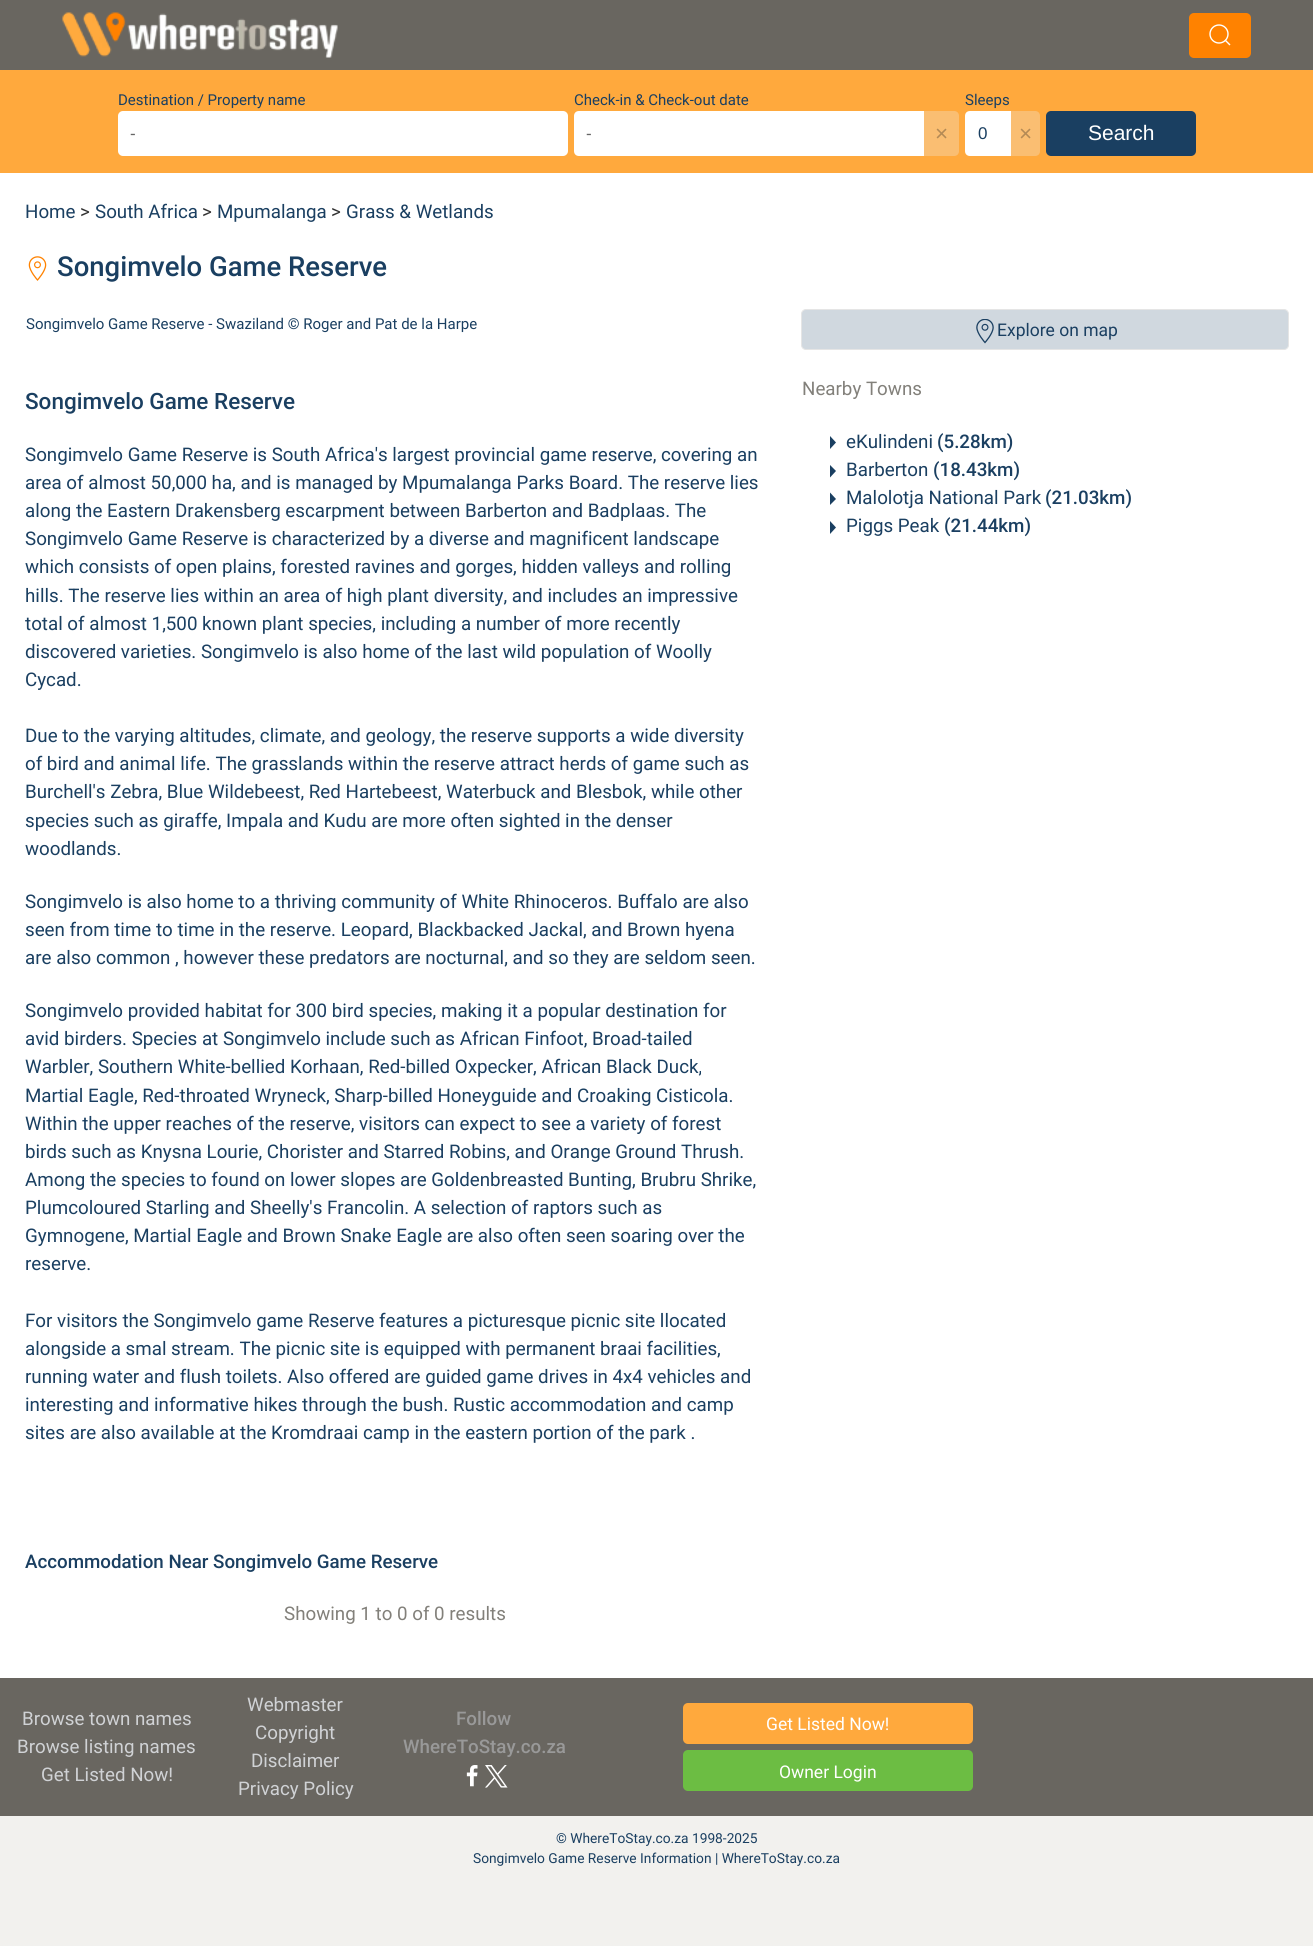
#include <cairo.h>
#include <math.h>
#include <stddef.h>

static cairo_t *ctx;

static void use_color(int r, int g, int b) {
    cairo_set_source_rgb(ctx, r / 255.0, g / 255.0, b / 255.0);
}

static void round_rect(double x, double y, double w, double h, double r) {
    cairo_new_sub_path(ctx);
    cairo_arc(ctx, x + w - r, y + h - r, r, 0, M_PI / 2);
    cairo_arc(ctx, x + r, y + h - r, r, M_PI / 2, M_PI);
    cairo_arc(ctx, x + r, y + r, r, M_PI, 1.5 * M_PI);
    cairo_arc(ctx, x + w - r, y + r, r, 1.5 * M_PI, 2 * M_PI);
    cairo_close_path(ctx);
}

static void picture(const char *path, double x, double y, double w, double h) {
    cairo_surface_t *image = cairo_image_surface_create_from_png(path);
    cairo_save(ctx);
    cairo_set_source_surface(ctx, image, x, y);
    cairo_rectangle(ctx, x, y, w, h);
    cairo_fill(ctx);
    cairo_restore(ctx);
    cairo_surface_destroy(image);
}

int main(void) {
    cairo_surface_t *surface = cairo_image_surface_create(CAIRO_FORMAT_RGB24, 1313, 1946);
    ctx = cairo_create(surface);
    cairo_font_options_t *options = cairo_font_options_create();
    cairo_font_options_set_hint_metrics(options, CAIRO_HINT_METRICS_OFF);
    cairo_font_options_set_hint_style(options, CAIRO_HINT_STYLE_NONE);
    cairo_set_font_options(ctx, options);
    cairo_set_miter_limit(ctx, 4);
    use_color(242, 241, 238);
    cairo_paint(ctx);
    use_color(105, 102, 96);
    cairo_rectangle(ctx, 0, 0, 1313, 70);
    cairo_fill(ctx);
    picture("img1.png", 62, 12, 276, 46);
    use_color(255, 130, 0);
    round_rect(1189, 13, 62, 45, 5);
    cairo_fill(ctx);
    cairo_arc(ctx, 1219, 34, 9, 0, 2 * M_PI);
    use_color(255, 255, 255);
    cairo_set_line_width(ctx, 1.4);
    cairo_stroke(ctx);
    cairo_new_path(ctx);
    cairo_move_to(ctx, 1225, 40);
    cairo_line_to(ctx, 1230, 45);
    cairo_close_path(ctx);
    cairo_stroke(ctx);
    use_color(255, 169, 61);
    cairo_rectangle(ctx, 0, 70, 1313, 103);
    cairo_fill(ctx);
    cairo_select_font_face(ctx, "Roboto", CAIRO_FONT_SLANT_NORMAL, CAIRO_FONT_WEIGHT_NORMAL);
    cairo_set_font_size(ctx, 15);
    use_color(26, 63, 97);
    cairo_move_to(ctx, 118, 105);
    cairo_show_text(ctx, "Destination / Property name");
    use_color(255, 255, 255);
    round_rect(118, 111, 450, 45, 5);
    cairo_fill(ctx);
    cairo_select_font_face(ctx, "Liberation Sans", CAIRO_FONT_SLANT_NORMAL, CAIRO_FONT_WEIGHT_NORMAL);
    cairo_set_font_size(ctx, 17);
    use_color(102, 102, 102);
    cairo_move_to(ctx, 130, 139);
    cairo_show_text(ctx, "-");
    cairo_select_font_face(ctx, "Roboto", CAIRO_FONT_SLANT_NORMAL, CAIRO_FONT_WEIGHT_NORMAL);
    cairo_set_font_size(ctx, 15);
    use_color(26, 63, 97);
    cairo_move_to(ctx, 574, 105);
    cairo_show_text(ctx, "Check-in & Check-out date");
    use_color(255, 255, 255);
    cairo_new_path(ctx);
    cairo_move_to(ctx, 579, 111);
    cairo_line_to(ctx, 924, 111);
    cairo_line_to(ctx, 924, 156);
    cairo_line_to(ctx, 579, 156);
    cairo_curve_to(ctx, 576, 156, 574, 154, 574, 151);
    cairo_line_to(ctx, 574, 116);
    cairo_curve_to(ctx, 574, 113, 576, 111, 579, 111);
    cairo_close_path(ctx);
    cairo_fill(ctx);
    cairo_select_font_face(ctx, "Liberation Sans", CAIRO_FONT_SLANT_NORMAL, CAIRO_FONT_WEIGHT_NORMAL);
    cairo_set_font_size(ctx, 17);
    use_color(102, 102, 102);
    cairo_move_to(ctx, 586, 139);
    cairo_show_text(ctx, "-");
    use_color(250, 190, 114);
    cairo_new_path(ctx);
    cairo_move_to(ctx, 924, 111);
    cairo_line_to(ctx, 954, 111);
    cairo_curve_to(ctx, 957, 111, 959, 113, 959, 116);
    cairo_line_to(ctx, 959, 151);
    cairo_curve_to(ctx, 959, 154, 957, 156, 954, 156);
    cairo_line_to(ctx, 924, 156);
    cairo_close_path(ctx);
    cairo_fill(ctx);
    cairo_set_font_size(ctx, 22.5);
    use_color(180, 138, 85);
    cairo_move_to(ctx, 935, 141);
    cairo_show_text(ctx, "×");
    cairo_select_font_face(ctx, "Roboto", CAIRO_FONT_SLANT_NORMAL, CAIRO_FONT_WEIGHT_NORMAL);
    cairo_set_font_size(ctx, 15);
    use_color(26, 63, 97);
    cairo_move_to(ctx, 965, 105);
    cairo_show_text(ctx, "Sleeps");
    use_color(255, 255, 255);
    cairo_new_path(ctx);
    cairo_move_to(ctx, 970, 111);
    cairo_line_to(ctx, 1011, 111);
    cairo_line_to(ctx, 1011, 156);
    cairo_line_to(ctx, 970, 156);
    cairo_curve_to(ctx, 967, 156, 965, 154, 965, 151);
    cairo_line_to(ctx, 965, 116);
    cairo_curve_to(ctx, 965, 113, 967, 111, 970, 111);
    cairo_close_path(ctx);
    cairo_fill(ctx);
    cairo_select_font_face(ctx, "Liberation Sans", CAIRO_FONT_SLANT_NORMAL, CAIRO_FONT_WEIGHT_NORMAL);
    cairo_set_font_size(ctx, 17);
    use_color(26, 63, 97);
    cairo_move_to(ctx, 978, 139);
    cairo_show_text(ctx, "0");
    use_color(250, 190, 114);
    cairo_new_path(ctx);
    cairo_move_to(ctx, 1011, 111);
    cairo_line_to(ctx, 1035, 111);
    cairo_curve_to(ctx, 1038, 111, 1040, 113, 1040, 116);
    cairo_line_to(ctx, 1040, 151);
    cairo_curve_to(ctx, 1040, 154, 1038, 156, 1035, 156);
    cairo_line_to(ctx, 1011, 156);
    cairo_close_path(ctx);
    cairo_fill(ctx);
    cairo_set_font_size(ctx, 22.5);
    use_color(180, 138, 85);
    cairo_move_to(ctx, 1019, 141);
    cairo_show_text(ctx, "×");
    use_color(26, 63, 97);
    round_rect(1046, 111, 150, 45, 5);
    cairo_fill(ctx);
    cairo_set_font_size(ctx, 21);
    use_color(255, 255, 255);
    cairo_move_to(ctx, 1088, 140);
    cairo_show_text(ctx, "Search");
    cairo_rectangle(ctx, 0, 173, 1313, 1505);
    cairo_fill(ctx);
    cairo_select_font_face(ctx, "Roboto", CAIRO_FONT_SLANT_NORMAL, CAIRO_FONT_WEIGHT_NORMAL);
    cairo_set_font_size(ctx, 18.75);
    use_color(26, 63, 97);
    cairo_move_to(ctx, 25, 218);
    cairo_show_text(ctx, "Home");
    use_color(51, 51, 51);
    cairo_move_to(ctx, 80, 218);
    cairo_show_text(ctx, ">");
    use_color(26, 63, 97);
    cairo_move_to(ctx, 95, 218);
    cairo_show_text(ctx, "South Africa");
    use_color(51, 51, 51);
    cairo_move_to(ctx, 202, 218);
    cairo_show_text(ctx, ">");
    use_color(26, 63, 97);
    cairo_move_to(ctx, 217, 218);
    cairo_show_text(ctx, "Mpumalanga");
    use_color(51, 51, 51);
    cairo_move_to(ctx, 331, 218);
    cairo_show_text(ctx, ">");
    use_color(26, 63, 97);
    cairo_move_to(ctx, 346, 218);
    cairo_show_text(ctx, "Grass & Wetlands");
    picture("img2.png", 28, 256, 19, 25);
    cairo_select_font_face(ctx, "Roboto Medium", CAIRO_FONT_SLANT_NORMAL, CAIRO_FONT_WEIGHT_NORMAL);
    cairo_set_font_size(ctx, 27.5);
    cairo_move_to(ctx, 57, 276);
    cairo_show_text(ctx, "Songimvelo Game Reserve");
    cairo_select_font_face(ctx, "Roboto", CAIRO_FONT_SLANT_NORMAL, CAIRO_FONT_WEIGHT_NORMAL);
    cairo_set_font_size(ctx, 15);
    cairo_move_to(ctx, 26, 329);
    cairo_show_text(ctx, "Songimvelo Game Reserve - Swaziland © Roger and Pat de la Harpe");
    cairo_select_font_face(ctx, "Roboto Medium", CAIRO_FONT_SLANT_NORMAL, CAIRO_FONT_WEIGHT_NORMAL);
    cairo_set_font_size(ctx, 22.5);
    cairo_move_to(ctx, 25, 409);
    cairo_show_text(ctx, "Songimvelo Game Reserve");
    cairo_select_font_face(ctx, "Roboto", CAIRO_FONT_SLANT_NORMAL, CAIRO_FONT_WEIGHT_NORMAL);
    cairo_set_font_size(ctx, 18.75);
    cairo_move_to(ctx, 25, 461);
    cairo_show_text(ctx, "Songimvelo Game Reserve is South Africa's largest provincial game reserve, covering an");
    cairo_move_to(ctx, 25, 489);
    cairo_show_text(ctx, "area of almost 50,000 ha, and is managed by Mpumalanga Parks Board. The reserve lies");
    cairo_move_to(ctx, 25, 517);
    cairo_show_text(ctx, "along the Eastern Drakensberg escarpment between Barberton and Badplaas. The");
    cairo_move_to(ctx, 25, 545);
    cairo_show_text(ctx, "Songimvelo Game Reserve is characterized by a diverse and magnificent landscape");
    cairo_move_to(ctx, 25, 573);
    cairo_show_text(ctx, "which consists of open plains, forested ravines and gorges, hidden valleys and rolling");
    cairo_move_to(ctx, 25, 602);
    cairo_show_text(ctx, "hills. The reserve lies within an area of high plant diversity, and includes an impressive");
    cairo_move_to(ctx, 25, 630);
    cairo_show_text(ctx, "total of almost 1,500 known plant species, including a number of more recently");
    cairo_move_to(ctx, 25, 658);
    cairo_show_text(ctx, "discovered varieties. Songimvelo is also home of the last wild population of Woolly");
    cairo_move_to(ctx, 25, 686);
    cairo_show_text(ctx, "Cycad.");
    cairo_move_to(ctx, 25, 742);
    cairo_show_text(ctx, "Due to the varying altitudes, climate, and geology, the reserve supports a wide diversity");
    cairo_move_to(ctx, 25, 770);
    cairo_show_text(ctx, "of bird and animal life. The grasslands within the reserve attract herds of game such as");
    cairo_move_to(ctx, 25, 798);
    cairo_show_text(ctx, "Burchell's Zebra, Blue Wildebeest, Red Hartebeest, Waterbuck and Blesbok, while other");
    cairo_move_to(ctx, 25, 827);
    cairo_show_text(ctx, "species such as giraffe, Impala and Kudu are more often sighted in the denser");
    cairo_move_to(ctx, 25, 855);
    cairo_show_text(ctx, "woodlands.");
    cairo_move_to(ctx, 25, 908);
    cairo_show_text(ctx, "Songimvelo is also home to a thriving community of White Rhinoceros. Buffalo are also");
    cairo_move_to(ctx, 25, 936);
    cairo_show_text(ctx, "seen from time to time in the reserve. Leopard, Blackbacked Jackal, and Brown hyena");
    cairo_move_to(ctx, 25, 964);
    cairo_show_text(ctx, "are also common , however these predators are nocturnal, and so they are seldom seen.");
    cairo_move_to(ctx, 25, 1017);
    cairo_show_text(ctx, "Songimvelo provided habitat for 300 bird species, making it a popular destination for");
    cairo_move_to(ctx, 25, 1045);
    cairo_show_text(ctx, "avid birders. Species at Songimvelo include such as African Finfoot, Broad-tailed");
    cairo_move_to(ctx, 25, 1073);
    cairo_show_text(ctx, "Warbler, Southern White-bellied Korhaan, Red-billed Oxpecker, African Black Duck,");
    cairo_move_to(ctx, 25, 1102);
    cairo_show_text(ctx, "Martial Eagle, Red-throated Wryneck, Sharp-billed Honeyguide and Croaking Cisticola.");
    cairo_move_to(ctx, 25, 1130);
    cairo_show_text(ctx, "Within the upper reaches of the reserve, visitors can expect to see a variety of forest");
    cairo_move_to(ctx, 25, 1158);
    cairo_show_text(ctx, "birds such as Knysna Lourie, Chorister and Starred Robins, and Orange Ground Thrush.");
    cairo_move_to(ctx, 25, 1186);
    cairo_show_text(ctx, "Among the species to found on lower slopes are Goldenbreasted Bunting, Brubru Shrike,");
    cairo_move_to(ctx, 25, 1214);
    cairo_show_text(ctx, "Plumcoloured Starling and Sheelly's Francolin. A selection of raptors such as");
    cairo_move_to(ctx, 25, 1242);
    cairo_show_text(ctx, "Gymnogene, Martial Eagle and Brown Snake Eagle are also often seen soaring over the");
    cairo_move_to(ctx, 25, 1270);
    cairo_show_text(ctx, "reserve.");
    cairo_move_to(ctx, 25, 1327);
    cairo_show_text(ctx, "For visitors the Songimvelo game Reserve features a picturesque picnic site llocated");
    cairo_move_to(ctx, 25, 1355);
    cairo_show_text(ctx, "alongside a smal stream. The picnic site is equipped with permanent braai facilities,");
    cairo_move_to(ctx, 25, 1383);
    cairo_show_text(ctx, "running water and flush toilets. Also offered are guided game drives in 4x4 vehicles and");
    cairo_move_to(ctx, 25, 1411);
    cairo_show_text(ctx, "interesting and informative hikes through the bush. Rustic accommodation and camp");
    cairo_move_to(ctx, 25, 1439);
    cairo_show_text(ctx, "sites are also available at the Kromdraai camp in the eastern portion of the park .");
    cairo_select_font_face(ctx, "Roboto Medium", CAIRO_FONT_SLANT_NORMAL, CAIRO_FONT_WEIGHT_NORMAL);
    cairo_move_to(ctx, 25, 1568);
    cairo_show_text(ctx, "Accommodation Near Songimvelo Game Reserve");
    cairo_select_font_face(ctx, "Roboto", CAIRO_FONT_SLANT_NORMAL, CAIRO_FONT_WEIGHT_NORMAL);
    use_color(130, 128, 122);
    cairo_move_to(ctx, 284, 1620);
    cairo_show_text(ctx, "Showing 1 to 0 of 0 results");
    use_color(208, 216, 223);
    round_rect(801.5, 309.5, 487, 40, 4.5);
    cairo_fill_preserve(ctx);
    use_color(229, 229, 229);
    cairo_set_line_width(ctx, 1);
    cairo_stroke(ctx);
    picture("img3.png", 976, 319, 18, 25);
    cairo_set_font_size(ctx, 17.5);
    use_color(26, 63, 97);
    cairo_move_to(ctx, 997, 336);
    cairo_show_text(ctx, "Explore on map");
    cairo_set_font_size(ctx, 18.75);
    use_color(130, 128, 122);
    cairo_move_to(ctx, 802, 395);
    cairo_show_text(ctx, "Nearby Towns");
    use_color(26, 63, 97);
    cairo_new_path(ctx);
    cairo_move_to(ctx, 830, 436);
    cairo_line_to(ctx, 836, 442.5);
    cairo_line_to(ctx, 830, 449);
    cairo_close_path(ctx);
    cairo_move_to(ctx, 830, 465);
    cairo_line_to(ctx, 836, 471);
    cairo_line_to(ctx, 830, 477.5);
    cairo_close_path(ctx);
    cairo_fill(ctx);
    cairo_move_to(ctx, 846, 448);
    cairo_show_text(ctx, "eKulindeni");
    cairo_select_font_face(ctx, "Roboto Medium", CAIRO_FONT_SLANT_NORMAL, CAIRO_FONT_WEIGHT_NORMAL);
    cairo_move_to(ctx, 937, 448);
    cairo_show_text(ctx, "(5.28km)");
    cairo_select_font_face(ctx, "Roboto", CAIRO_FONT_SLANT_NORMAL, CAIRO_FONT_WEIGHT_NORMAL);
    cairo_move_to(ctx, 846, 476);
    cairo_show_text(ctx, "Barberton");
    cairo_select_font_face(ctx, "Roboto Medium", CAIRO_FONT_SLANT_NORMAL, CAIRO_FONT_WEIGHT_NORMAL);
    cairo_move_to(ctx, 933, 476);
    cairo_show_text(ctx, "(18.43km)");
    cairo_new_path(ctx);
    cairo_move_to(ctx, 830, 492.5);
    cairo_line_to(ctx, 836, 499);
    cairo_line_to(ctx, 830, 505);
    cairo_close_path(ctx);
    cairo_move_to(ctx, 830, 521);
    cairo_line_to(ctx, 836, 527.5);
    cairo_line_to(ctx, 830, 534);
    cairo_close_path(ctx);
    cairo_fill(ctx);
    cairo_select_font_face(ctx, "Roboto", CAIRO_FONT_SLANT_NORMAL, CAIRO_FONT_WEIGHT_NORMAL);
    cairo_move_to(ctx, 846, 504);
    cairo_show_text(ctx, "Malolotja National Park");
    cairo_select_font_face(ctx, "Roboto Medium", CAIRO_FONT_SLANT_NORMAL, CAIRO_FONT_WEIGHT_NORMAL);
    cairo_move_to(ctx, 1045, 504);
    cairo_show_text(ctx, "(21.03km)");
    cairo_select_font_face(ctx, "Roboto", CAIRO_FONT_SLANT_NORMAL, CAIRO_FONT_WEIGHT_NORMAL);
    cairo_move_to(ctx, 846, 532);
    cairo_show_text(ctx, "Piggs Peak");
    cairo_select_font_face(ctx, "Roboto Medium", CAIRO_FONT_SLANT_NORMAL, CAIRO_FONT_WEIGHT_NORMAL);
    cairo_move_to(ctx, 944, 532);
    cairo_show_text(ctx, "(21.44km)");
    use_color(105, 102, 96);
    cairo_rectangle(ctx, 0, 1678, 1313, 138);
    cairo_fill(ctx);
    cairo_select_font_face(ctx, "Roboto", CAIRO_FONT_SLANT_NORMAL, CAIRO_FONT_WEIGHT_NORMAL);
    use_color(208, 210, 213);
    cairo_move_to(ctx, 22, 1725);
    cairo_show_text(ctx, "Browse town names");
    cairo_move_to(ctx, 17, 1753);
    cairo_show_text(ctx, "Browse listing names");
    cairo_move_to(ctx, 41, 1781);
    cairo_show_text(ctx, "Get Listed Now!");
    cairo_move_to(ctx, 247, 1711);
    cairo_show_text(ctx, "Webmaster");
    cairo_move_to(ctx, 255, 1739);
    cairo_show_text(ctx, "Copyright");
    cairo_move_to(ctx, 251, 1767);
    cairo_show_text(ctx, "Disclaimer");
    cairo_move_to(ctx, 238, 1795);
    cairo_show_text(ctx, "Privacy Policy");
    cairo_select_font_face(ctx, "Roboto Medium", CAIRO_FONT_SLANT_NORMAL, CAIRO_FONT_WEIGHT_NORMAL);
    use_color(153, 153, 153);
    cairo_move_to(ctx, 456, 1725);
    cairo_show_text(ctx, "Follow");
    cairo_move_to(ctx, 403, 1753);
    cairo_show_text(ctx, "WhereToStay.co.za");
    picture("img4.png", 466, 1765, 12, 22);
    picture("img5.png", 485, 1765, 23, 23);
    use_color(255, 169, 61);
    round_rect(683, 1703, 290, 41, 5);
    cairo_fill(ctx);
    cairo_select_font_face(ctx, "Roboto", CAIRO_FONT_SLANT_NORMAL, CAIRO_FONT_WEIGHT_NORMAL);
    cairo_set_font_size(ctx, 17.5);
    use_color(255, 255, 255);
    cairo_move_to(ctx, 766, 1730);
    cairo_show_text(ctx, "Get Listed Now!");
    use_color(108, 189, 67);
    round_rect(683, 1750, 290, 41, 5);
    cairo_fill(ctx);
    use_color(255, 255, 255);
    cairo_move_to(ctx, 779, 1778);
    cairo_show_text(ctx, "Owner Login");
    cairo_set_font_size(ctx, 13.75);
    use_color(26, 63, 97);
    cairo_move_to(ctx, 556, 1843);
    cairo_show_text(ctx, "© WhereToStay.co.za 1998-2025");
    cairo_move_to(ctx, 473, 1863);
    cairo_show_text(ctx, "Songimvelo Game Reserve Information | WhereToStay.co.za");
    cairo_surface_write_to_png(surface, "result.png");
    cairo_font_options_destroy(options);
    cairo_destroy(ctx);
    cairo_surface_destroy(surface);
    return 0;
}
